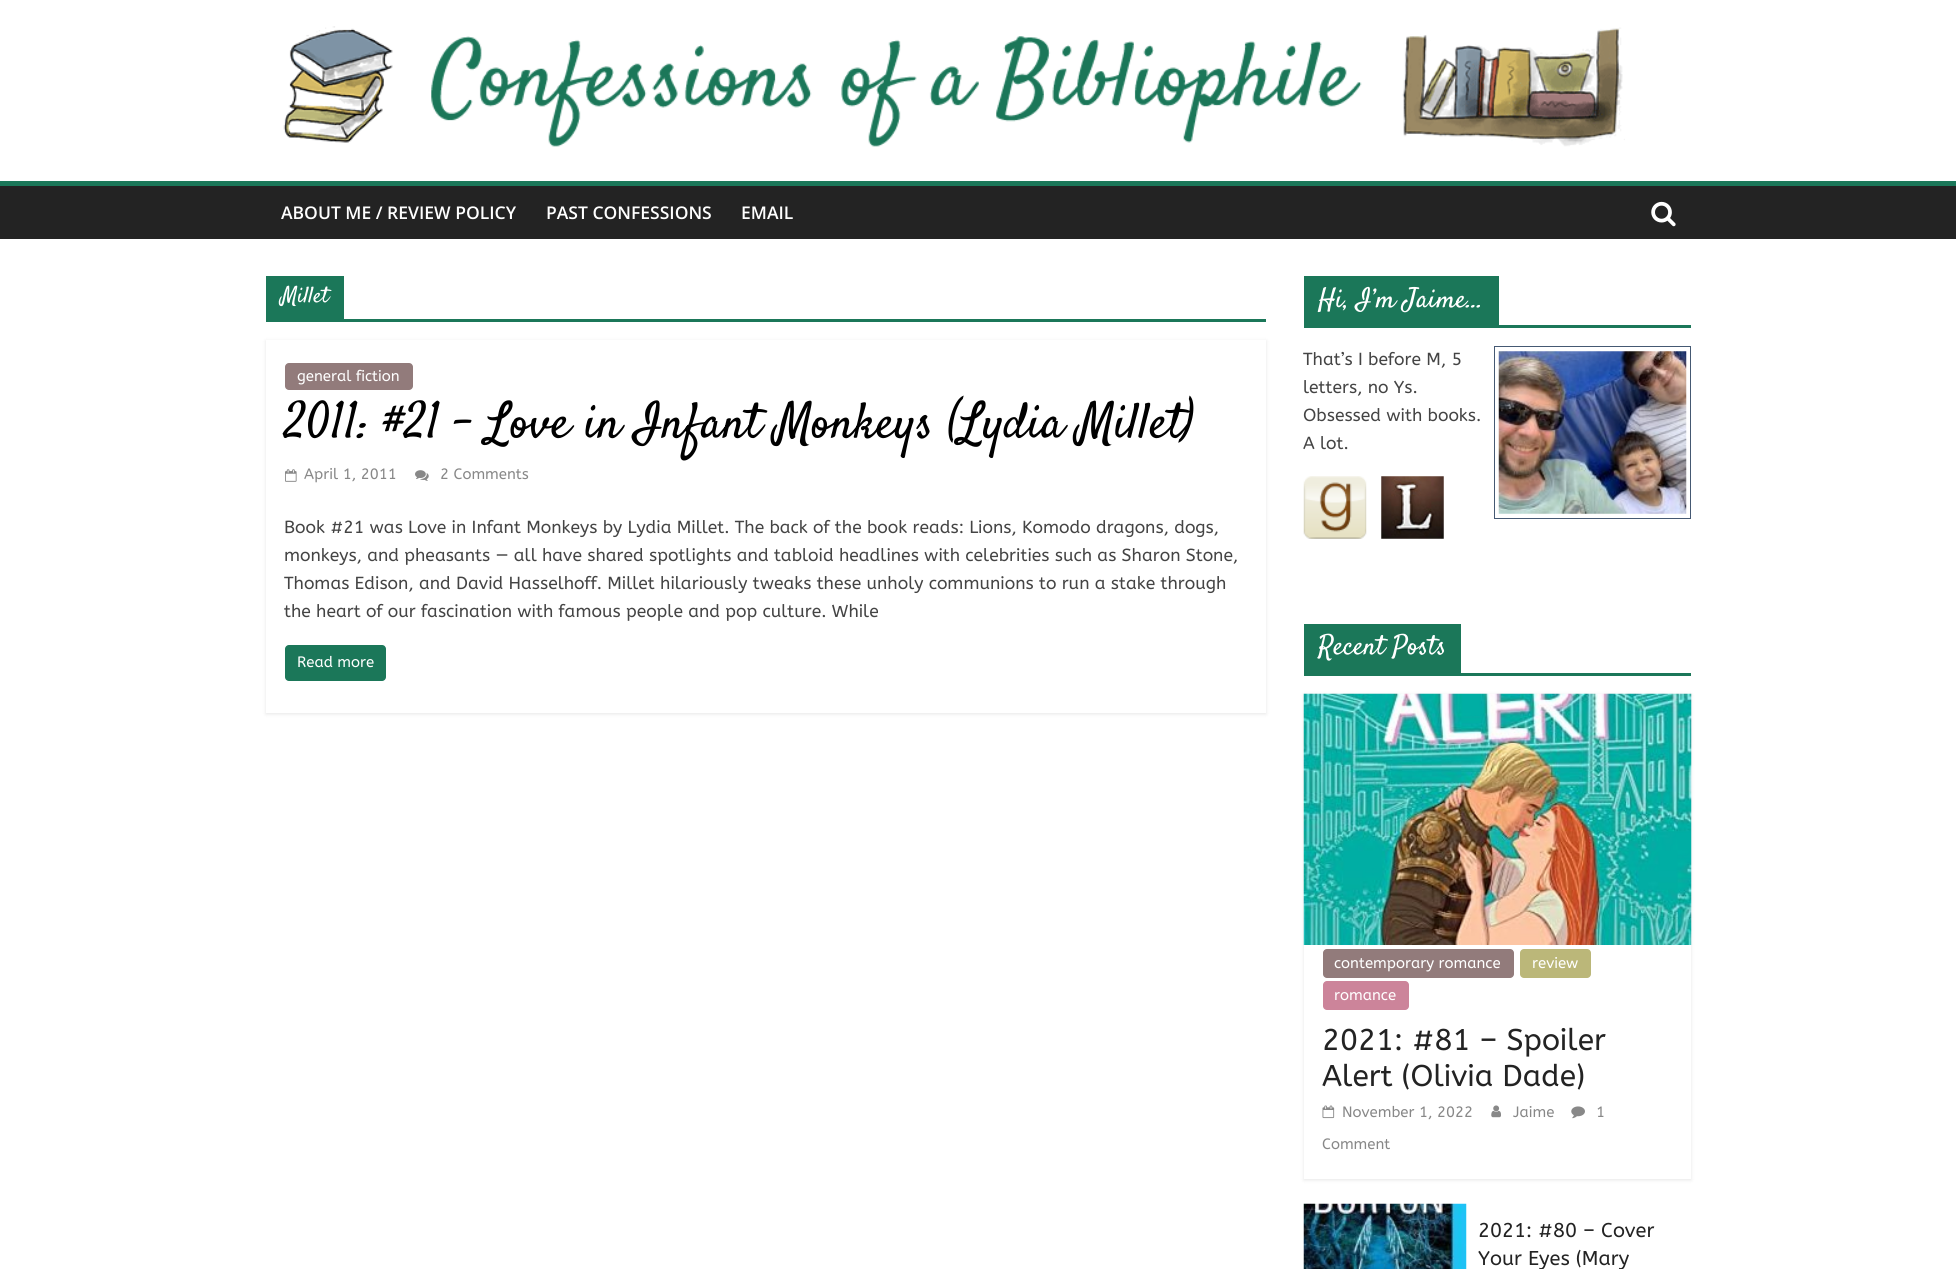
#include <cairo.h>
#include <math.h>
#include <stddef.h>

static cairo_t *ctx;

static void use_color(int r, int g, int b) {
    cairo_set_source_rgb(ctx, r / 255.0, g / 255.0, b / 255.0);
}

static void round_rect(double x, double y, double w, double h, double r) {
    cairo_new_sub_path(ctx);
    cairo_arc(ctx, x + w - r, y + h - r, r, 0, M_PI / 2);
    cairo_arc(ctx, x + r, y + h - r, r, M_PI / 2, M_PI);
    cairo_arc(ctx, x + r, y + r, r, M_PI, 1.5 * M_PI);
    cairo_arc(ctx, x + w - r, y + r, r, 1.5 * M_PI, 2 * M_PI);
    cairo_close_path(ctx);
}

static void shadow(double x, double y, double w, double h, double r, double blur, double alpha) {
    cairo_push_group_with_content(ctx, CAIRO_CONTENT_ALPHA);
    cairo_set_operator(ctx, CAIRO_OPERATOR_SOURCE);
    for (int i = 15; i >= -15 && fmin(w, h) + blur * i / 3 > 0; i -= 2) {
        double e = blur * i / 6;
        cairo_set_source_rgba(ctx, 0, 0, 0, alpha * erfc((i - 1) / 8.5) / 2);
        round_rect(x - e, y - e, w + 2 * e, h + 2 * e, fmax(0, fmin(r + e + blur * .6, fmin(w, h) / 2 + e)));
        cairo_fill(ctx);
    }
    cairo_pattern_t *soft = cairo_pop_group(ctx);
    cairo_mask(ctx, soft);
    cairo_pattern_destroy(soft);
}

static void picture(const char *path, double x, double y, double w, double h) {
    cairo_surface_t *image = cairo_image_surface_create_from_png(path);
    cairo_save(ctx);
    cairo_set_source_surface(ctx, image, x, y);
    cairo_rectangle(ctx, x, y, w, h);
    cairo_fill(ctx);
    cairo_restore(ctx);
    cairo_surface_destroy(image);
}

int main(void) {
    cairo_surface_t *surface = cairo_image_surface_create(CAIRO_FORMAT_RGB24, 1956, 1269);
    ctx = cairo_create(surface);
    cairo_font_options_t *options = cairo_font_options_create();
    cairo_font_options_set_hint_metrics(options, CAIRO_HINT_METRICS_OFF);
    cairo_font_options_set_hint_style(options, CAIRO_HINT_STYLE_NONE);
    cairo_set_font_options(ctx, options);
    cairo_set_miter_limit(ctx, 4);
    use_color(255, 255, 255);
    cairo_paint(ctx);
    picture("img1.png", 283, 26, 1342, 121);
    use_color(35, 35, 35);
    cairo_rectangle(ctx, 0, 186, 1956, 53);
    cairo_fill(ctx);
    use_color(27, 119, 89);
    cairo_rectangle(ctx, 0, 181, 1956, 5);
    cairo_fill(ctx);
    cairo_select_font_face(ctx, "Open Sans SemiBold", CAIRO_FONT_SLANT_NORMAL, CAIRO_FONT_WEIGHT_NORMAL);
    cairo_set_font_size(ctx, 17.5);
    use_color(255, 255, 255);
    cairo_move_to(ctx, 281, 219);
    cairo_show_text(ctx, "ABOUT ME / REVIEW POLICY");
    cairo_move_to(ctx, 546, 219);
    cairo_show_text(ctx, "PAST CONFESSIONS");
    cairo_move_to(ctx, 741, 219);
    cairo_show_text(ctx, "EMAIL");
    picture("img2.png", 1651, 201, 25, 26);
    use_color(27, 119, 89);
    cairo_rectangle(ctx, 266, 319, 1000, 3);
    cairo_fill(ctx);
    cairo_rectangle(ctx, 266, 276, 78, 43);
    cairo_fill(ctx);
    cairo_select_font_face(ctx, "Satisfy", CAIRO_FONT_SLANT_NORMAL, CAIRO_FONT_WEIGHT_NORMAL);
    cairo_set_font_size(ctx, 22.5);
    use_color(255, 255, 255);
    cairo_move_to(ctx, 281, 302);
    cairo_show_text(ctx, "Millet");
    cairo_save(ctx);
    cairo_set_fill_rule(ctx, CAIRO_FILL_RULE_EVEN_ODD);
    cairo_new_path(ctx);
    cairo_move_to(ctx, 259, 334);
    cairo_line_to(ctx, 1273, 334);
    cairo_line_to(ctx, 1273, 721);
    cairo_line_to(ctx, 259, 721);
    cairo_close_path(ctx);
    cairo_move_to(ctx, 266, 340);
    cairo_line_to(ctx, 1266, 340);
    cairo_line_to(ctx, 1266, 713);
    cairo_line_to(ctx, 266, 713);
    cairo_close_path(ctx);
    cairo_clip(ctx);
    use_color(0, 0, 0);
    shadow(266, 341, 1000, 373, 0, 2, 0.1);
    cairo_restore(ctx);
    use_color(146, 123, 123);
    round_rect(285, 363, 128, 27, 4);
    cairo_fill(ctx);
    cairo_select_font_face(ctx, "ABeeZee", CAIRO_FONT_SLANT_NORMAL, CAIRO_FONT_WEIGHT_NORMAL);
    cairo_set_font_size(ctx, 15);
    use_color(255, 255, 255);
    cairo_move_to(ctx, 297, 381);
    cairo_show_text(ctx, "general fiction");
    cairo_select_font_face(ctx, "Satisfy", CAIRO_FONT_SLANT_NORMAL, CAIRO_FONT_WEIGHT_NORMAL);
    cairo_set_font_size(ctx, 50);
    use_color(0, 0, 0);
    cairo_move_to(ctx, 284, 437);
    cairo_show_text(ctx, "2011: #21 – Love in Infant Monkeys (Lydia Millet)");
    picture("img3.png", 285, 469, 12, 13);
    cairo_select_font_face(ctx, "ABeeZee", CAIRO_FONT_SLANT_NORMAL, CAIRO_FONT_WEIGHT_NORMAL);
    cairo_set_font_size(ctx, 15);
    use_color(136, 136, 136);
    cairo_move_to(ctx, 304, 479);
    cairo_show_text(ctx, "April 1, 2011");
    picture("img4.png", 415, 470, 14, 11);
    cairo_move_to(ctx, 440, 479);
    cairo_show_text(ctx, "2 Comments");
    cairo_set_font_size(ctx, 17.5);
    use_color(68, 68, 68);
    cairo_move_to(ctx, 284, 533);
    cairo_show_text(ctx, "Book #21 was Love in Infant Monkeys by Lydia Millet. The back of the book reads: Lions, Komodo dragons, dogs,");
    cairo_move_to(ctx, 284, 561);
    cairo_show_text(ctx, "monkeys, and pheasants — all have shared spotlights and tabloid headlines with celebrities such as Sharon Stone,");
    cairo_move_to(ctx, 284, 589);
    cairo_show_text(ctx, "Thomas Edison, and David Hasselhoff. Millet hilariously tweaks these unholy communions to run a stake through");
    cairo_move_to(ctx, 284, 617);
    cairo_show_text(ctx, "the heart of our fascination with famous people and pop culture. While");
    use_color(27, 119, 89);
    round_rect(285, 645, 101, 36, 4);
    cairo_fill(ctx);
    cairo_set_font_size(ctx, 15);
    use_color(255, 255, 255);
    cairo_move_to(ctx, 297, 667);
    cairo_show_text(ctx, "Read more");
    use_color(27, 119, 89);
    cairo_rectangle(ctx, 1304, 325, 387, 3);
    cairo_fill(ctx);
    cairo_rectangle(ctx, 1304, 276, 195, 49);
    cairo_fill(ctx);
    cairo_select_font_face(ctx, "Satisfy", CAIRO_FONT_SLANT_NORMAL, CAIRO_FONT_WEIGHT_NORMAL);
    cairo_set_font_size(ctx, 27.5);
    use_color(255, 255, 255);
    cairo_move_to(ctx, 1318, 307);
    cairo_show_text(ctx, "Hi, I’m Jaime…");
    cairo_select_font_face(ctx, "ABeeZee", CAIRO_FONT_SLANT_NORMAL, CAIRO_FONT_WEIGHT_NORMAL);
    cairo_set_font_size(ctx, 17.5);
    use_color(68, 68, 68);
    cairo_move_to(ctx, 1303, 365);
    cairo_show_text(ctx, "That’s I before M, 5");
    cairo_rectangle(ctx, 1494.5, 346.5, 196, 172);
    use_color(69, 89, 115);
    cairo_set_line_width(ctx, 1);
    cairo_stroke(ctx);
    picture("img5.png", 1498, 351, 189, 163);
    use_color(68, 68, 68);
    cairo_move_to(ctx, 1303, 393);
    cairo_show_text(ctx, "letters, no Ys.");
    cairo_move_to(ctx, 1303, 421);
    cairo_show_text(ctx, "Obsessed with books.");
    cairo_move_to(ctx, 1303, 449);
    cairo_show_text(ctx, "A lot.");
    picture("img6.png", 1303, 476, 64, 63);
    picture("img7.png", 1381, 476, 63, 63);
    use_color(27, 119, 89);
    cairo_rectangle(ctx, 1304, 673, 387, 3);
    cairo_fill(ctx);
    cairo_rectangle(ctx, 1304, 624, 157, 49);
    cairo_fill(ctx);
    cairo_select_font_face(ctx, "Satisfy", CAIRO_FONT_SLANT_NORMAL, CAIRO_FONT_WEIGHT_NORMAL);
    cairo_set_font_size(ctx, 27.5);
    use_color(255, 255, 255);
    cairo_move_to(ctx, 1318, 654);
    cairo_show_text(ctx, "Recent Posts");
    cairo_save(ctx);
    cairo_set_fill_rule(ctx, CAIRO_FILL_RULE_EVEN_ODD);
    cairo_new_path(ctx);
    cairo_move_to(ctx, 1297, 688);
    cairo_line_to(ctx, 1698, 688);
    cairo_line_to(ctx, 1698, 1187);
    cairo_line_to(ctx, 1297, 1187);
    cairo_close_path(ctx);
    cairo_move_to(ctx, 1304, 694);
    cairo_line_to(ctx, 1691, 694);
    cairo_line_to(ctx, 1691, 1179);
    cairo_line_to(ctx, 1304, 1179);
    cairo_close_path(ctx);
    cairo_clip(ctx);
    use_color(0, 0, 0);
    shadow(1304, 695, 387, 485, 0, 2, 0.1);
    cairo_restore(ctx);
    picture("img8.png", 1303, 693, 389, 252);
    use_color(146, 123, 123);
    round_rect(1323, 949, 191, 29, 4);
    cairo_fill(ctx);
    cairo_select_font_face(ctx, "ABeeZee", CAIRO_FONT_SLANT_NORMAL, CAIRO_FONT_WEIGHT_NORMAL);
    cairo_set_font_size(ctx, 15);
    use_color(255, 255, 255);
    cairo_move_to(ctx, 1334, 968);
    cairo_show_text(ctx, "contemporary romance");
    use_color(187, 183, 121);
    round_rect(1520, 949, 71, 29, 4);
    cairo_fill(ctx);
    use_color(255, 255, 255);
    cairo_move_to(ctx, 1532, 968);
    cairo_show_text(ctx, "review");
    use_color(204, 132, 154);
    round_rect(1323, 981, 86, 29, 4);
    cairo_fill(ctx);
    use_color(255, 255, 255);
    cairo_move_to(ctx, 1334, 1000);
    cairo_show_text(ctx, "romance");
    cairo_set_font_size(ctx, 30);
    use_color(35, 35, 35);
    cairo_move_to(ctx, 1322, 1050);
    cairo_show_text(ctx, "2021: #81 – Spoiler");
    cairo_move_to(ctx, 1322, 1086);
    cairo_show_text(ctx, "Alert (Olivia Dade)");
    picture("img9.png", 1322, 1105, 13, 14);
    cairo_set_font_size(ctx, 15);
    use_color(136, 136, 136);
    cairo_move_to(ctx, 1342, 1117);
    cairo_show_text(ctx, "November 1, 2022");
    picture("img10.png", 1571, 1106, 14, 13);
    cairo_move_to(ctx, 1596, 1117);
    cairo_show_text(ctx, "1");
    cairo_move_to(ctx, 1322, 1149);
    cairo_show_text(ctx, "Comment");
    picture("img11.png", 1491, 1105, 10, 13);
    cairo_move_to(ctx, 1513, 1117);
    cairo_show_text(ctx, "Jaime");
    picture("img12.png", 1303, 1203, 164, 66);
    cairo_set_font_size(ctx, 20);
    use_color(35, 35, 35);
    cairo_move_to(ctx, 1478, 1237);
    cairo_show_text(ctx, "2021: #80 – Cover");
    cairo_move_to(ctx, 1478, 1265);
    cairo_show_text(ctx, "Your Eyes (Mary");
    cairo_surface_write_to_png(surface, "result.png");
    cairo_font_options_destroy(options);
    cairo_destroy(ctx);
    cairo_surface_destroy(surface);
    return 0;
}
